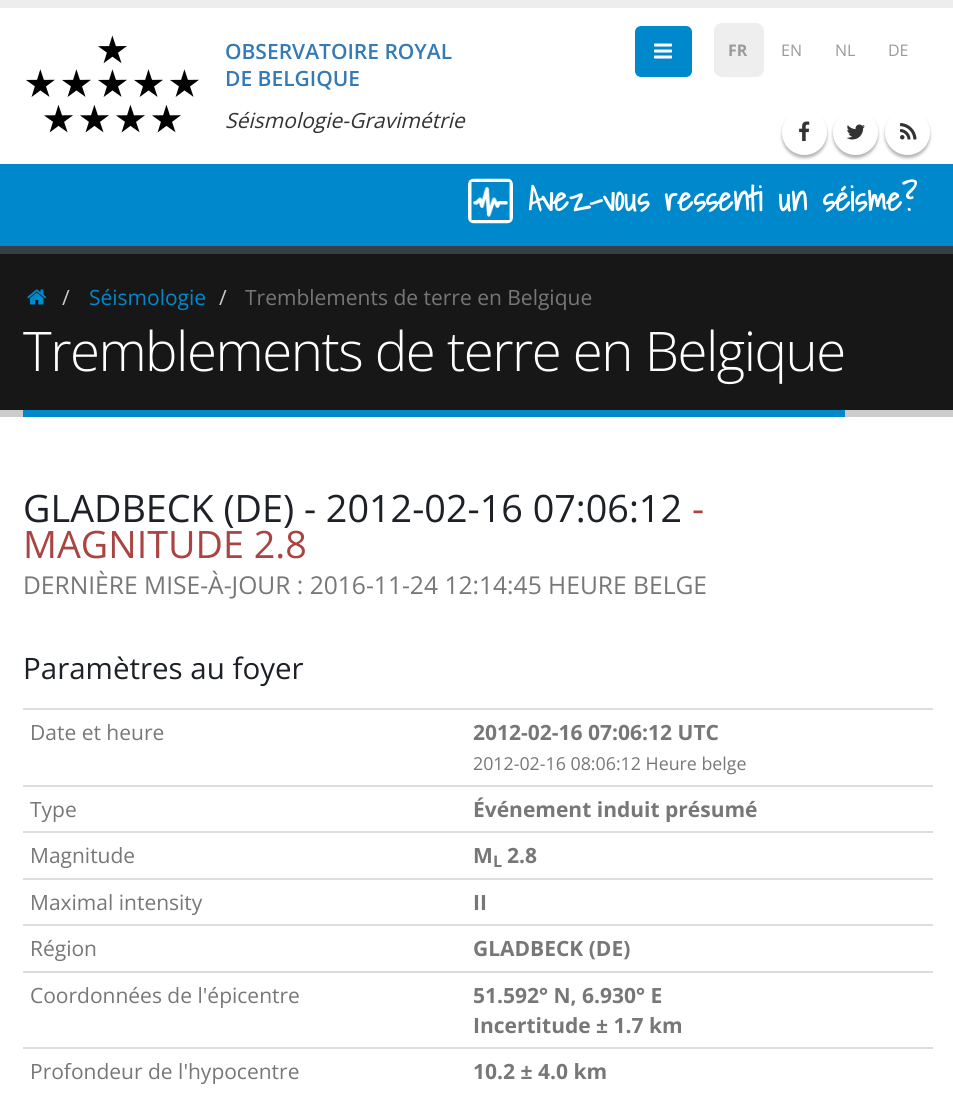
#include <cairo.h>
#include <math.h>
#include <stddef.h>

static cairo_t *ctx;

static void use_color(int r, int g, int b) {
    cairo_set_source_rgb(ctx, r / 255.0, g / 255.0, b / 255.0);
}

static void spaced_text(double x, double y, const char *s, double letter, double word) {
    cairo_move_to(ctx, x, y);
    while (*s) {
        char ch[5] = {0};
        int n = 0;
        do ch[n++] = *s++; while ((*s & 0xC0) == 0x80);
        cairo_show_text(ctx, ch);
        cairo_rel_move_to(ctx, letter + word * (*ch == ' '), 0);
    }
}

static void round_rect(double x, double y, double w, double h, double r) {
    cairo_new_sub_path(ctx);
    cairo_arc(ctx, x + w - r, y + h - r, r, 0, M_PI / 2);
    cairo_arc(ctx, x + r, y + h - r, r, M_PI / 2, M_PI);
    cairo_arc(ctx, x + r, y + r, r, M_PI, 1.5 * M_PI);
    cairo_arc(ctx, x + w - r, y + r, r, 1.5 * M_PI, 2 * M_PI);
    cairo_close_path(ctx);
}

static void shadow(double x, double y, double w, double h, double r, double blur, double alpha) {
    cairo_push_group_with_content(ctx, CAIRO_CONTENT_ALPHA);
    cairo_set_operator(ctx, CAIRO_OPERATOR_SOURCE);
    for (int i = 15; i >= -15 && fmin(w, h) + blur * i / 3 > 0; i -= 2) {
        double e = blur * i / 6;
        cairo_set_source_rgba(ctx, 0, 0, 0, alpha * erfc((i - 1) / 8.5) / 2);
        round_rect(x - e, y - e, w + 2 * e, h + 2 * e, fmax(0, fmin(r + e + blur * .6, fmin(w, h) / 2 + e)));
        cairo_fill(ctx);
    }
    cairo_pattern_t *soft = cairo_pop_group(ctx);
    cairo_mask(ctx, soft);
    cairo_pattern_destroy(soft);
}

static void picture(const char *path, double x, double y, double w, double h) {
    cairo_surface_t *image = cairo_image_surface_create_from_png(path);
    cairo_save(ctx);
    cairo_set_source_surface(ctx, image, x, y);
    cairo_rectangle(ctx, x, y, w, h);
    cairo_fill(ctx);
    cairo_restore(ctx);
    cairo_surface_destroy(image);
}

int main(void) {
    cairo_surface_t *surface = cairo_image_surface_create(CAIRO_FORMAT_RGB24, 953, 1116);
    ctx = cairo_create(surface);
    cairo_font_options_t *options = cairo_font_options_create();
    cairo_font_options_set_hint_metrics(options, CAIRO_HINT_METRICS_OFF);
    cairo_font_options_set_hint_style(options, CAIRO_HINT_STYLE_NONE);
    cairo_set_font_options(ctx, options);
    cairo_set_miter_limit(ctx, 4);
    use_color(255, 255, 255);
    cairo_paint(ctx);
    use_color(237, 237, 237);
    cairo_rectangle(ctx, 0, 0, 953, 8);
    cairo_fill(ctx);
    picture("img1.png", 26, 35, 173, 98);
    cairo_select_font_face(ctx, "Open Sans SemiBold", CAIRO_FONT_SLANT_NORMAL, CAIRO_FONT_WEIGHT_NORMAL);
    cairo_set_font_size(ctx, 21);
    use_color(51, 122, 183);
    cairo_move_to(ctx, 225, 59);
    cairo_show_text(ctx, "OBSERVATOIRE ROYAL");
    cairo_move_to(ctx, 225, 86);
    cairo_show_text(ctx, "DE BELGIQUE");
    cairo_select_font_face(ctx, "Open Sans", CAIRO_FONT_SLANT_ITALIC, CAIRO_FONT_WEIGHT_NORMAL);
    use_color(51, 51, 51);
    cairo_move_to(ctx, 225, 128);
    cairo_show_text(ctx, "Séismologie-Gravimétrie");
    use_color(0, 136, 204);
    round_rect(635, 26, 57, 51, 6);
    cairo_fill(ctx);
    picture("img2.png", 654, 43, 18, 16);
    use_color(0, 0, 0);
    shadow(782, 113, 45, 45, 22.5, 1.5, 0.3);
    use_color(255, 255, 255);
    cairo_arc(ctx, 804.5, 132.5, 22.5, 0, 2 * M_PI);
    cairo_fill(ctx);
    picture("img3.png", 799, 121, 11, 20);
    use_color(0, 0, 0);
    shadow(833, 113, 45, 45, 22.5, 1.5, 0.3);
    use_color(255, 255, 255);
    cairo_arc(ctx, 855.5, 132.5, 22.5, 0, 2 * M_PI);
    cairo_fill(ctx);
    picture("img4.png", 846, 124, 19, 16);
    use_color(0, 0, 0);
    shadow(885, 113, 45, 45, 22.5, 1.5, 0.3);
    use_color(255, 255, 255);
    cairo_arc(ctx, 907.5, 132.5, 22.5, 0, 2 * M_PI);
    cairo_fill(ctx);
    picture("img5.png", 900, 123, 17, 17);
    use_color(238, 238, 238);
    round_rect(714, 23, 50, 54, 8);
    cairo_fill(ctx);
    cairo_select_font_face(ctx, "Open Sans", CAIRO_FONT_SLANT_NORMAL, CAIRO_FONT_WEIGHT_BOLD);
    cairo_set_font_size(ctx, 16);
    use_color(153, 153, 153);
    cairo_move_to(ctx, 728, 56);
    cairo_show_text(ctx, "FR");
    cairo_select_font_face(ctx, "Open Sans", CAIRO_FONT_SLANT_NORMAL, CAIRO_FONT_WEIGHT_NORMAL);
    cairo_move_to(ctx, 781, 56);
    cairo_show_text(ctx, "EN");
    cairo_move_to(ctx, 835, 56);
    cairo_show_text(ctx, "NL");
    cairo_move_to(ctx, 888, 56);
    cairo_show_text(ctx, "DE");
    use_color(0, 136, 204);
    cairo_rectangle(ctx, 0, 164, 953, 82);
    cairo_fill(ctx);
    picture("img6.png", 468, 178, 45, 46);
    cairo_select_font_face(ctx, "Shadows Into Light", CAIRO_FONT_SLANT_NORMAL, CAIRO_FONT_WEIGHT_BOLD);
    cairo_set_font_size(ctx, 33.6);
    use_color(255, 255, 255);
    cairo_move_to(ctx, 528, 211);
    cairo_show_text(ctx, "Avez-vous ressenti un séisme?");
    use_color(23, 23, 23);
    cairo_rectangle(ctx, 0, 254, 953, 156);
    cairo_fill(ctx);
    use_color(56, 64, 69);
    cairo_rectangle(ctx, 0, 246, 953, 8);
    cairo_fill(ctx);
    use_color(204, 204, 204);
    cairo_rectangle(ctx, 0, 410, 953, 7);
    cairo_fill(ctx);
    picture("img7.png", 27, 289, 20, 16);
    cairo_select_font_face(ctx, "Open Sans", CAIRO_FONT_SLANT_NORMAL, CAIRO_FONT_WEIGHT_NORMAL);
    cairo_set_font_size(ctx, 21);
    cairo_move_to(ctx, 62, 305);
    cairo_show_text(ctx, "/");
    use_color(0, 136, 204);
    cairo_move_to(ctx, 89, 305);
    cairo_show_text(ctx, "Séismologie");
    use_color(204, 204, 204);
    cairo_move_to(ctx, 219, 305);
    cairo_show_text(ctx, "/");
    use_color(119, 119, 119);
    cairo_move_to(ctx, 245, 305);
    cairo_show_text(ctx, "Tremblements de terre en Belgique");
    use_color(0, 136, 204);
    cairo_rectangle(ctx, 23, 410, 822, 7);
    cairo_fill(ctx);
    cairo_select_font_face(ctx, "Open Sans Light", CAIRO_FONT_SLANT_NORMAL, CAIRO_FONT_WEIGHT_NORMAL);
    cairo_set_font_size(ctx, 54.6);
    use_color(255, 255, 255);
    spaced_text(23, 371, "Tremblements de terre en Belgique", -1.5, 0);
    cairo_select_font_face(ctx, "Open Sans", CAIRO_FONT_SLANT_NORMAL, CAIRO_FONT_WEIGHT_NORMAL);
    cairo_set_font_size(ctx, 37.75);
    use_color(29, 33, 39);
    cairo_move_to(ctx, 23, 522);
    cairo_show_text(ctx, "GLADBECK (DE) - 2012-02-16 07:06:12");
    use_color(169, 68, 66);
    cairo_move_to(ctx, 692, 522);
    cairo_show_text(ctx, "-");
    cairo_move_to(ctx, 23, 558);
    cairo_show_text(ctx, "MAGNITUDE 2.8");
    cairo_set_font_size(ctx, 24.6);
    use_color(119, 119, 119);
    cairo_move_to(ctx, 23, 594);
    cairo_show_text(ctx, "DERNIÈRE MISE-À-JOUR : 2016-11-24 12:14:45 HEURE BELGE");
    cairo_set_font_size(ctx, 29.5);
    use_color(29, 33, 39);
    cairo_move_to(ctx, 23, 679);
    cairo_show_text(ctx, "Paramètres au foyer");
    cairo_set_font_size(ctx, 21);
    use_color(119, 119, 119);
    cairo_move_to(ctx, 30, 740);
    cairo_show_text(ctx, "Date et heure");
    use_color(221, 221, 221);
    cairo_rectangle(ctx, 23, 708, 910, 2);
    cairo_fill(ctx);
    cairo_select_font_face(ctx, "Open Sans", CAIRO_FONT_SLANT_NORMAL, CAIRO_FONT_WEIGHT_BOLD);
    use_color(119, 119, 119);
    cairo_move_to(ctx, 473, 740);
    cairo_show_text(ctx, "2012-02-16 07:06:12 UTC");
    cairo_select_font_face(ctx, "Open Sans", CAIRO_FONT_SLANT_NORMAL, CAIRO_FONT_WEIGHT_NORMAL);
    cairo_set_font_size(ctx, 17.8);
    cairo_move_to(ctx, 473, 770);
    cairo_show_text(ctx, "2012-02-16 08:06:12 Heure belge");
    cairo_set_font_size(ctx, 21);
    cairo_move_to(ctx, 30, 817);
    cairo_show_text(ctx, "Type");
    use_color(221, 221, 221);
    cairo_rectangle(ctx, 23, 785, 910, 2);
    cairo_fill(ctx);
    cairo_select_font_face(ctx, "Open Sans", CAIRO_FONT_SLANT_NORMAL, CAIRO_FONT_WEIGHT_BOLD);
    use_color(119, 119, 119);
    cairo_move_to(ctx, 473, 817);
    cairo_show_text(ctx, "Événement induit présumé");
    cairo_select_font_face(ctx, "Open Sans", CAIRO_FONT_SLANT_NORMAL, CAIRO_FONT_WEIGHT_NORMAL);
    cairo_move_to(ctx, 30, 863);
    cairo_show_text(ctx, "Magnitude");
    use_color(221, 221, 221);
    cairo_rectangle(ctx, 23, 831, 910, 2);
    cairo_fill(ctx);
    cairo_select_font_face(ctx, "Open Sans", CAIRO_FONT_SLANT_NORMAL, CAIRO_FONT_WEIGHT_BOLD);
    use_color(119, 119, 119);
    cairo_move_to(ctx, 473, 863);
    cairo_show_text(ctx, "M");
    cairo_set_font_size(ctx, 16);
    cairo_move_to(ctx, 493, 867);
    cairo_show_text(ctx, "L");
    cairo_set_font_size(ctx, 21);
    cairo_move_to(ctx, 507, 863);
    cairo_show_text(ctx, "2.8");
    cairo_select_font_face(ctx, "Open Sans", CAIRO_FONT_SLANT_NORMAL, CAIRO_FONT_WEIGHT_NORMAL);
    cairo_move_to(ctx, 30, 910);
    cairo_show_text(ctx, "Maximal intensity");
    use_color(221, 221, 221);
    cairo_rectangle(ctx, 23, 878, 910, 2);
    cairo_fill(ctx);
    cairo_select_font_face(ctx, "Open Sans", CAIRO_FONT_SLANT_NORMAL, CAIRO_FONT_WEIGHT_BOLD);
    use_color(119, 119, 119);
    cairo_move_to(ctx, 473, 910);
    cairo_show_text(ctx, "II");
    cairo_select_font_face(ctx, "Open Sans", CAIRO_FONT_SLANT_NORMAL, CAIRO_FONT_WEIGHT_NORMAL);
    cairo_move_to(ctx, 30, 956);
    cairo_show_text(ctx, "Région");
    use_color(221, 221, 221);
    cairo_rectangle(ctx, 23, 924, 910, 2);
    cairo_fill(ctx);
    cairo_select_font_face(ctx, "Open Sans", CAIRO_FONT_SLANT_NORMAL, CAIRO_FONT_WEIGHT_BOLD);
    use_color(119, 119, 119);
    cairo_move_to(ctx, 473, 956);
    cairo_show_text(ctx, "GLADBECK (DE)");
    cairo_select_font_face(ctx, "Open Sans", CAIRO_FONT_SLANT_NORMAL, CAIRO_FONT_WEIGHT_NORMAL);
    cairo_move_to(ctx, 30, 1003);
    cairo_show_text(ctx, "Coordonnées de l'épicentre");
    use_color(221, 221, 221);
    cairo_rectangle(ctx, 23, 971, 910, 2);
    cairo_fill(ctx);
    cairo_select_font_face(ctx, "Open Sans", CAIRO_FONT_SLANT_NORMAL, CAIRO_FONT_WEIGHT_BOLD);
    use_color(119, 119, 119);
    cairo_move_to(ctx, 473, 1003);
    cairo_show_text(ctx, "51.592° N, 6.930° E");
    cairo_move_to(ctx, 473, 1033);
    cairo_show_text(ctx, "Incertitude ± 1.7 km");
    cairo_select_font_face(ctx, "Open Sans", CAIRO_FONT_SLANT_NORMAL, CAIRO_FONT_WEIGHT_NORMAL);
    cairo_move_to(ctx, 30, 1079);
    cairo_show_text(ctx, "Profondeur de l'hypocentre");
    use_color(221, 221, 221);
    cairo_rectangle(ctx, 23, 1047, 910, 2);
    cairo_fill(ctx);
    cairo_select_font_face(ctx, "Open Sans", CAIRO_FONT_SLANT_NORMAL, CAIRO_FONT_WEIGHT_BOLD);
    use_color(119, 119, 119);
    cairo_move_to(ctx, 473, 1079);
    cairo_show_text(ctx, "10.2 ± 4.0 km");
    cairo_surface_write_to_png(surface, "result.png");
    cairo_font_options_destroy(options);
    cairo_destroy(ctx);
    cairo_surface_destroy(surface);
    return 0;
}
